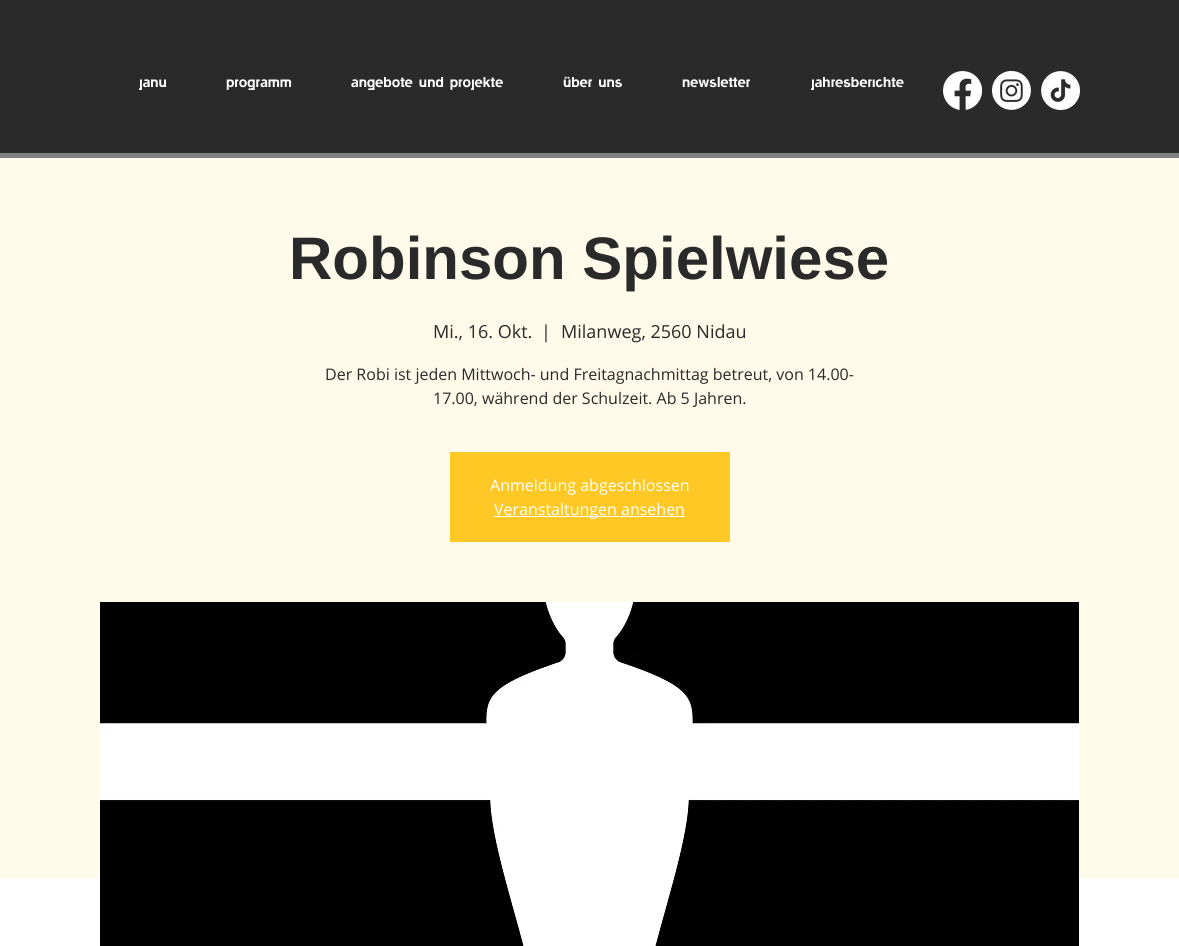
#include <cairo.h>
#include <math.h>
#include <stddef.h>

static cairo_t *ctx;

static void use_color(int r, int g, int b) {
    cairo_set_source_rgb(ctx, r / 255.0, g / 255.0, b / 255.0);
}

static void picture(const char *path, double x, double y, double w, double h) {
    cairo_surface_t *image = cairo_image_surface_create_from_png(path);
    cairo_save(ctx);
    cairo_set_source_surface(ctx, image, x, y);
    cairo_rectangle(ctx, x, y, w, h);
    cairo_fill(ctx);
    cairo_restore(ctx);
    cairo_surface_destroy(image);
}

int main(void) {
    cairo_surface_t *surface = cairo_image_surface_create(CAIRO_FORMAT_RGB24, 1179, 946);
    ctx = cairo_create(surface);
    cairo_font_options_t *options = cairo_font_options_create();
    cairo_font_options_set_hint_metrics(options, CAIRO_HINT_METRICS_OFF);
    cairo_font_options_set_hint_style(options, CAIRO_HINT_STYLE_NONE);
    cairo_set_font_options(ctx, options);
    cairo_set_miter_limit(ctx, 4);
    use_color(255, 255, 255);
    cairo_paint(ctx);
    use_color(42, 42, 42);
    cairo_rectangle(ctx, 0, 0, 1179, 153);
    cairo_fill(ctx);
    use_color(128, 128, 128);
    cairo_rectangle(ctx, 0, 153, 1179, 5);
    cairo_fill(ctx);
    cairo_select_font_face(ctx, "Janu", CAIRO_FONT_SLANT_NORMAL, CAIRO_FONT_WEIGHT_BOLD);
    cairo_set_font_size(ctx, 15);
    use_color(255, 255, 255);
    cairo_move_to(ctx, 139, 87);
    cairo_show_text(ctx, "JANU");
    cairo_move_to(ctx, 226, 87);
    cairo_show_text(ctx, "Programm");
    cairo_move_to(ctx, 351, 87);
    cairo_show_text(ctx, "Angebote und Projekte");
    cairo_move_to(ctx, 563, 87);
    cairo_show_text(ctx, "Über uns");
    cairo_move_to(ctx, 682, 87);
    cairo_show_text(ctx, "Newsletter");
    cairo_move_to(ctx, 811, 87);
    cairo_show_text(ctx, "Jahresberichte");
    picture("img1.png", 943, 71, 39, 39);
    picture("img2.png", 992, 71, 39, 39);
    picture("img3.png", 1041, 71, 39, 39);
    use_color(255, 250, 234);
    cairo_rectangle(ctx, 0, 158, 1179, 720);
    cairo_fill(ctx);
    cairo_select_font_face(ctx, "Liberation Sans", CAIRO_FONT_SLANT_NORMAL, CAIRO_FONT_WEIGHT_BOLD);
    cairo_set_font_size(ctx, 60);
    use_color(42, 42, 42);
    cairo_move_to(ctx, 289, 279);
    cairo_show_text(ctx, "Robinson Spielwiese");
    cairo_select_font_face(ctx, "Open Sans", CAIRO_FONT_SLANT_NORMAL, CAIRO_FONT_WEIGHT_NORMAL);
    cairo_set_font_size(ctx, 18);
    cairo_move_to(ctx, 433, 338);
    cairo_show_text(ctx, "Mi., 16. Okt.");
    cairo_move_to(ctx, 541, 338);
    cairo_show_text(ctx, "|");
    cairo_move_to(ctx, 561, 338);
    cairo_show_text(ctx, "Milanweg, 2560 Nidau");
    cairo_set_font_size(ctx, 16);
    cairo_move_to(ctx, 325, 380);
    cairo_show_text(ctx, "Der Robi ist jeden Mittwoch- und Freitagnachmittag betreut, von 14.00-");
    cairo_move_to(ctx, 433, 404);
    cairo_show_text(ctx, "17.00, während der Schulzeit. Ab 5 Jahren.");
    use_color(255, 200, 36);
    cairo_rectangle(ctx, 450, 452, 280, 90);
    cairo_fill(ctx);
    use_color(255, 255, 255);
    cairo_move_to(ctx, 490, 491);
    cairo_show_text(ctx, "Anmeldung abgeschlossen");
    cairo_rectangle(ctx, 494, 516, 191, 1);
    cairo_fill(ctx);
    cairo_move_to(ctx, 494, 515);
    cairo_show_text(ctx, "Veranstaltungen ansehen");
    picture("img4.png", 100, 602, 979, 344);
    cairo_surface_write_to_png(surface, "result.png");
    cairo_font_options_destroy(options);
    cairo_destroy(ctx);
    cairo_surface_destroy(surface);
    return 0;
}
